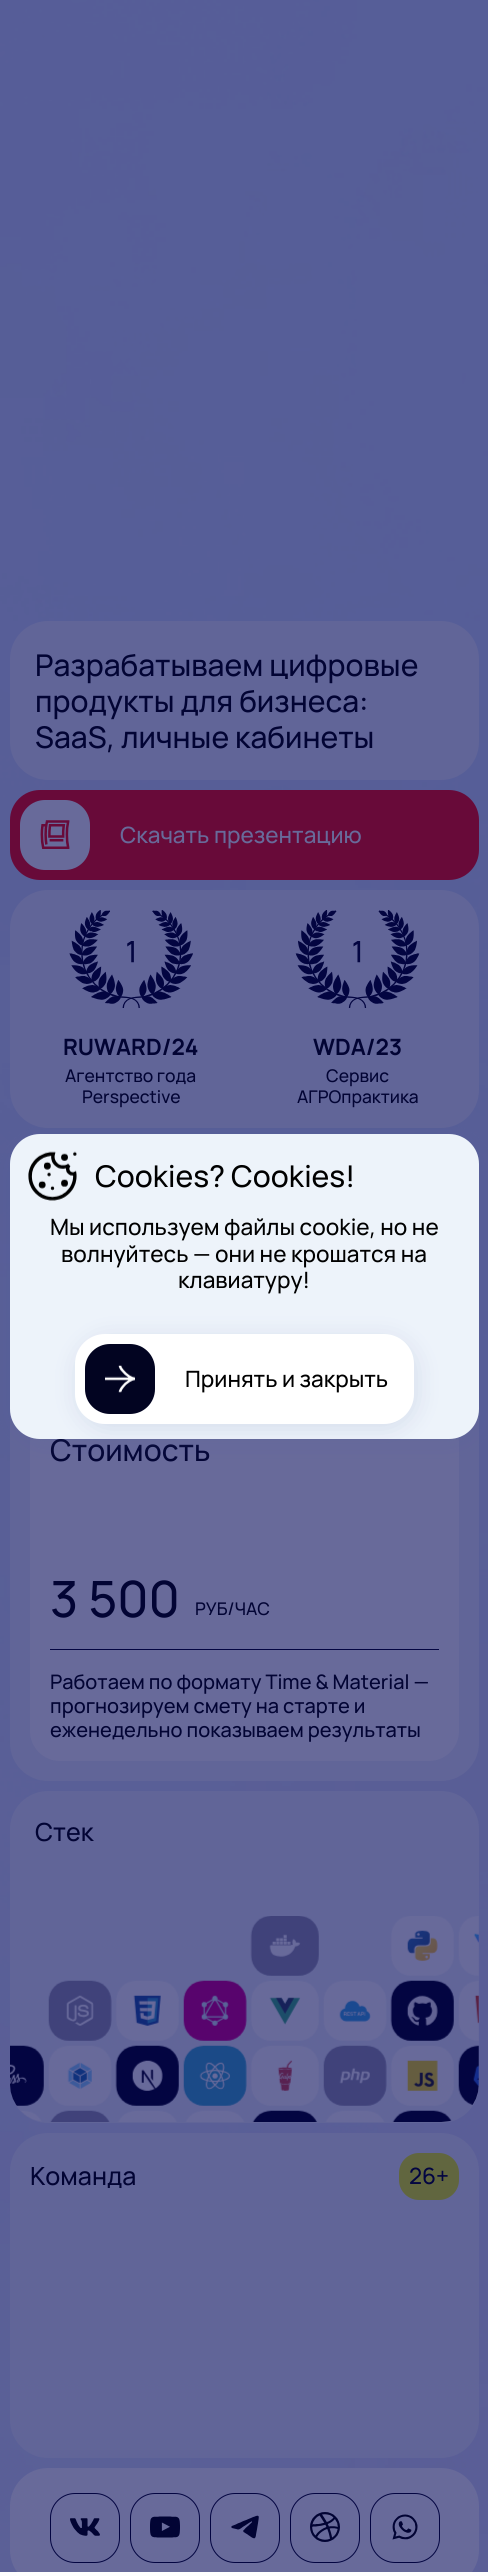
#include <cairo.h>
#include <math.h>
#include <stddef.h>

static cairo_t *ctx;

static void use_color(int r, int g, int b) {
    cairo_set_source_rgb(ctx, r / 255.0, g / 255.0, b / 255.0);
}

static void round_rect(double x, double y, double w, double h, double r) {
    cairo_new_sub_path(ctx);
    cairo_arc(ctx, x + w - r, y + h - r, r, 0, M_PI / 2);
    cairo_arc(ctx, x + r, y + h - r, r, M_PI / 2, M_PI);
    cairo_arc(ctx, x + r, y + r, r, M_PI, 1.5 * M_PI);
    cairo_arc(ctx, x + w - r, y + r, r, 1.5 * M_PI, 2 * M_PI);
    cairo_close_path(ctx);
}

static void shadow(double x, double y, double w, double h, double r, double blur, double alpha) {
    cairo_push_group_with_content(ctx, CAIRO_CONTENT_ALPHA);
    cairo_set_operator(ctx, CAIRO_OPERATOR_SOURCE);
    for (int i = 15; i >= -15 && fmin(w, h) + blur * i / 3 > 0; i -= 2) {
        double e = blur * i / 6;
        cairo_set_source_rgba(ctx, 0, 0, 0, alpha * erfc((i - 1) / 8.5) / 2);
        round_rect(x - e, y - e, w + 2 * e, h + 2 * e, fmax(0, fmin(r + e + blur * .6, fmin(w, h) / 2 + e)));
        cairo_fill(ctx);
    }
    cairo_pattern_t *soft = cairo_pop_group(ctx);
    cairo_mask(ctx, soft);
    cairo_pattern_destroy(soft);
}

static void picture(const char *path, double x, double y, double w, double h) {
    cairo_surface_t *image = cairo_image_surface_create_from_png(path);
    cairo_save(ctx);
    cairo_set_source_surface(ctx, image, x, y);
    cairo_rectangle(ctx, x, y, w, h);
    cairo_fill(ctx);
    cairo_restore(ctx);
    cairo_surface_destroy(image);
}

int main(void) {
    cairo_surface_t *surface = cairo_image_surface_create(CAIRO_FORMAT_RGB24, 488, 2572);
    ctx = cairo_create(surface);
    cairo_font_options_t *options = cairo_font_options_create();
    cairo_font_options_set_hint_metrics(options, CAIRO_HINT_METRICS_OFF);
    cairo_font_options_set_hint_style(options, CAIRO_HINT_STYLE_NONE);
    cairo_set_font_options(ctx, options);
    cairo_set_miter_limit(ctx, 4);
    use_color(255, 255, 255);
    cairo_paint(ctx);
    picture("img1.png", 0, 0, 488, 2572);
    use_color(97, 101, 152);
    round_rect(10, 621, 469, 159, 38);
    cairo_fill(ctx);
    cairo_select_font_face(ctx, "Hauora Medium", CAIRO_FONT_SLANT_NORMAL, CAIRO_FONT_WEIGHT_NORMAL);
    cairo_set_font_size(ctx, 30);
    use_color(2, 4, 52);
    cairo_move_to(ctx, 35, 676);
    cairo_show_text(ctx, "Разрабатываем цифровые");
    cairo_move_to(ctx, 35, 712);
    cairo_show_text(ctx, "продукты для бизнеса:");
    cairo_move_to(ctx, 35, 748);
    cairo_show_text(ctx, "SaaS, личные кабинеты");
    use_color(97, 101, 152);
    round_rect(10, 2133, 469, 325, 38);
    cairo_fill(ctx);
    cairo_set_font_size(ctx, 25);
    use_color(2, 4, 52);
    cairo_move_to(ctx, 30, 2185);
    cairo_show_text(ctx, "Команда");
    use_color(97, 102, 63);
    round_rect(399, 2153, 60, 47, 20);
    cairo_fill(ctx);
    cairo_set_font_size(ctx, 22.5);
    use_color(3, 5, 65);
    cairo_move_to(ctx, 409, 2184);
    cairo_show_text(ctx, "26+");
    use_color(97, 101, 152);
    round_rect(10, 1791, 469, 332, 38);
    cairo_fill(ctx);
    cairo_set_font_size(ctx, 25);
    use_color(2, 4, 52);
    cairo_move_to(ctx, 35, 1841);
    cairo_show_text(ctx, "Стек");
    picture("img2.png", 10, 1916, 469, 206);
    use_color(104, 10, 57);
    round_rect(10, 790, 469, 90, 30);
    cairo_fill(ctx);
    use_color(104, 106, 154);
    round_rect(20, 800, 70, 70, 25);
    cairo_fill(ctx);
    picture("img3.png", 40, 820, 30, 29);
    cairo_set_font_size(ctx, 22.5);
    cairo_move_to(ctx, 120, 843);
    cairo_show_text(ctx, "Скачать презентацию");
    use_color(97, 101, 152);
    round_rect(10, 890, 469, 238, 38);
    cairo_fill(ctx);
    picture("img4.png", 69, 910, 124, 98);
    cairo_select_font_face(ctx, "Hauora", CAIRO_FONT_SLANT_NORMAL, CAIRO_FONT_WEIGHT_BOLD);
    use_color(2, 4, 52);
    cairo_move_to(ctx, 63, 1055);
    cairo_show_text(ctx, "RUWARD/24");
    cairo_select_font_face(ctx, "Hauora Medium", CAIRO_FONT_SLANT_NORMAL, CAIRO_FONT_WEIGHT_NORMAL);
    cairo_set_font_size(ctx, 17.5);
    cairo_move_to(ctx, 65, 1082);
    cairo_show_text(ctx, "Агентство года");
    cairo_move_to(ctx, 82, 1103);
    cairo_show_text(ctx, "Perspective");
    picture("img5.png", 295, 910, 125, 98);
    cairo_select_font_face(ctx, "Hauora", CAIRO_FONT_SLANT_NORMAL, CAIRO_FONT_WEIGHT_BOLD);
    cairo_set_font_size(ctx, 22.5);
    cairo_move_to(ctx, 313, 1055);
    cairo_show_text(ctx, "WDA/23");
    cairo_select_font_face(ctx, "Hauora Medium", CAIRO_FONT_SLANT_NORMAL, CAIRO_FONT_WEIGHT_NORMAL);
    cairo_set_font_size(ctx, 17.5);
    cairo_move_to(ctx, 326, 1082);
    cairo_show_text(ctx, "Сервис");
    cairo_move_to(ctx, 297, 1103);
    cairo_show_text(ctx, "АГРОпрактика");
    use_color(97, 101, 152);
    round_rect(10, 1138, 469, 643, 38);
    cairo_fill(ctx);
    use_color(104, 106, 154);
    round_rect(30, 1413, 429, 348, 30);
    cairo_fill(ctx);
    cairo_set_font_size(ctx, 30);
    use_color(2, 4, 52);
    cairo_move_to(ctx, 50, 1461);
    cairo_show_text(ctx, "Стоимость");
    use_color(3, 5, 65);
    cairo_rectangle(ctx, 50, 1649, 389, 1);
    cairo_fill(ctx);
    cairo_set_font_size(ctx, 50);
    use_color(2, 4, 52);
    cairo_move_to(ctx, 50, 1617);
    cairo_show_text(ctx, "3 500");
    cairo_set_font_size(ctx, 17.5);
    cairo_move_to(ctx, 195, 1615);
    cairo_show_text(ctx, "РУБ/ЧАС");
    cairo_set_font_size(ctx, 20);
    cairo_move_to(ctx, 50, 1689);
    cairo_show_text(ctx, "Работаем по формату Time & Material —");
    cairo_move_to(ctx, 50, 1713);
    cairo_show_text(ctx, "прогнозируем смету на старте и");
    cairo_move_to(ctx, 50, 1737);
    cairo_show_text(ctx, "еженедельно показываем результаты");
    use_color(104, 106, 154);
    round_rect(10, 2468, 469, 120, 38);
    cairo_fill(ctx);
    round_rect(50.5, 2493.5, 69, 69, 24.5);
    use_color(3, 5, 65);
    cairo_set_line_width(ctx, 1);
    cairo_stroke(ctx);
    picture("img6.png", 70, 2518, 30, 18);
    round_rect(130.5, 2493.5, 69, 69, 24.5);
    cairo_stroke(ctx);
    picture("img7.png", 150, 2516, 30, 22);
    round_rect(210.5, 2493.5, 69, 69, 24.5);
    cairo_stroke(ctx);
    picture("img8.png", 231, 2515, 28, 24);
    round_rect(290.5, 2493.5, 69, 69, 24.5);
    cairo_stroke(ctx);
    picture("img9.png", 310, 2512, 30, 30);
    round_rect(370.5, 2493.5, 69, 69, 24.5);
    cairo_stroke(ctx);
    picture("img10.png", 392, 2514, 26, 26);
    use_color(75, 99, 160);
    shadow(13, 1139, 468, 305, 30, 12.5, 0.15);
    use_color(237, 243, 250);
    round_rect(10, 1134, 469, 305, 30);
    cairo_fill(ctx);
    picture("img11.png", 28, 1151, 49, 50);
    cairo_set_font_size(ctx, 30);
    use_color(0, 0, 0);
    cairo_move_to(ctx, 95, 1187);
    cairo_show_text(ctx, "Cookies? Cookies!");
    cairo_set_font_size(ctx, 22.5);
    cairo_move_to(ctx, 50, 1235);
    cairo_show_text(ctx, "Мы используем файлы cookie, но не");
    cairo_move_to(ctx, 61, 1262);
    cairo_show_text(ctx, "волнуйтесь — они не крошатся на");
    cairo_move_to(ctx, 178, 1288);
    cairo_show_text(ctx, "клавиатуру!");
    use_color(75, 99, 160);
    shadow(78, 1339, 338, 90, 30, 12.5, 0.15);
    use_color(255, 255, 255);
    round_rect(75, 1334, 339, 90, 30);
    cairo_fill(ctx);
    use_color(2, 4, 33);
    round_rect(85, 1344, 70, 70, 25);
    cairo_fill(ctx);
    picture("img12.png", 105, 1365, 30, 28);
    use_color(0, 0, 0);
    cairo_move_to(ctx, 185, 1387);
    cairo_show_text(ctx, "Принять и закрыть");
    cairo_surface_write_to_png(surface, "result.png");
    cairo_font_options_destroy(options);
    cairo_destroy(ctx);
    cairo_surface_destroy(surface);
    return 0;
}
